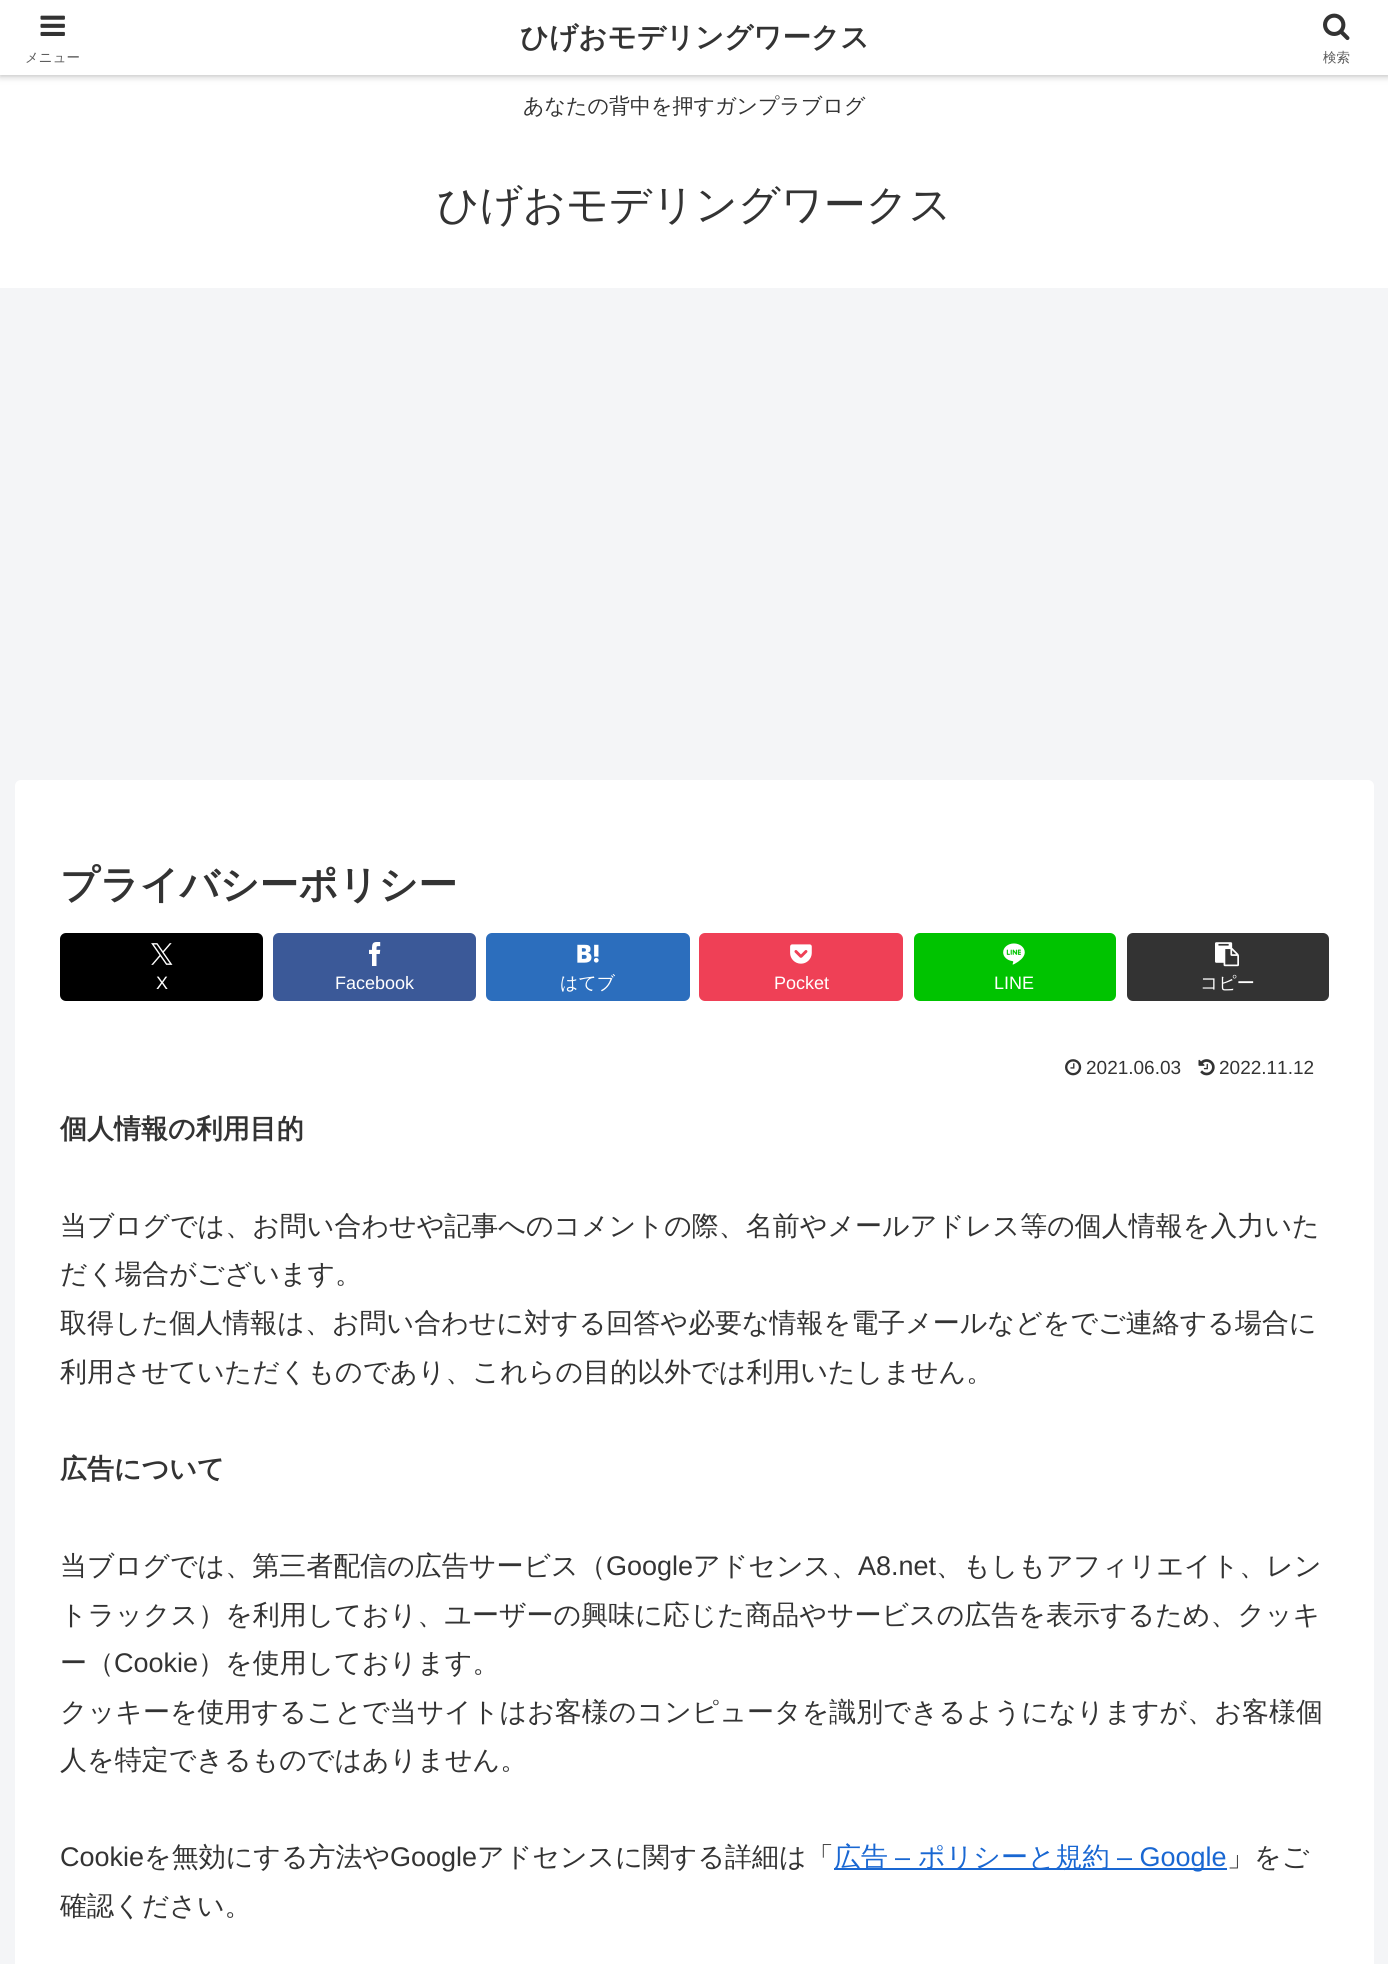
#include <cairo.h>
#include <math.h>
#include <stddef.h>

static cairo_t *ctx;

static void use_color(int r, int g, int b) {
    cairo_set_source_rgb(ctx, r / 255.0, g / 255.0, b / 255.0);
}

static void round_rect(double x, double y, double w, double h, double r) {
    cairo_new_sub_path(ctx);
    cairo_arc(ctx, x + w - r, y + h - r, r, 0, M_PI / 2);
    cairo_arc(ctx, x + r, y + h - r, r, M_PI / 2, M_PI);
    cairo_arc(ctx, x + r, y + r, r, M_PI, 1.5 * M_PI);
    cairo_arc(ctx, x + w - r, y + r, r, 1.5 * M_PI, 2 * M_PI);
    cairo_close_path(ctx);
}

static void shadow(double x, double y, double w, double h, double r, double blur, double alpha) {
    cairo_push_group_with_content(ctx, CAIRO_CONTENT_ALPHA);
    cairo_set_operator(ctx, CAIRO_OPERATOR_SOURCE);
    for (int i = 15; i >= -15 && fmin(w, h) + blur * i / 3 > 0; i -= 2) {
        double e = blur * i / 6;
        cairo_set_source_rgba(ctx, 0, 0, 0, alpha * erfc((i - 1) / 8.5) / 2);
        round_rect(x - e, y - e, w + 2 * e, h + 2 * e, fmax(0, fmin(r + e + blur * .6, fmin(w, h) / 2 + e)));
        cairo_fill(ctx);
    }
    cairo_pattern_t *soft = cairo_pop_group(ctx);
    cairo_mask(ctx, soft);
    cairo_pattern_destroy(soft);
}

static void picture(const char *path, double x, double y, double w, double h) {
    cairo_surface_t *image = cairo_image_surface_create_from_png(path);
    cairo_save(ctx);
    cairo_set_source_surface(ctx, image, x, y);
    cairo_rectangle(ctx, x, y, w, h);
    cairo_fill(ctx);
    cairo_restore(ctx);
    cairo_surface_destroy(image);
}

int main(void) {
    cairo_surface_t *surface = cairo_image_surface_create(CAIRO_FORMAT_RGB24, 1388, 1964);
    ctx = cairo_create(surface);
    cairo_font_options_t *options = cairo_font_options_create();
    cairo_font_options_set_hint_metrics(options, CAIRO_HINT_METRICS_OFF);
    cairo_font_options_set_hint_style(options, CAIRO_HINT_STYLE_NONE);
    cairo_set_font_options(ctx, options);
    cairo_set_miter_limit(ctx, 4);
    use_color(244, 245, 247);
    cairo_paint(ctx);
    use_color(255, 255, 255);
    cairo_rectangle(ctx, 0, 75, 1388, 213);
    cairo_fill(ctx);
    use_color(169, 169, 169);
    shadow(0, 0, 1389, 75, 0, 4, 1);
    use_color(255, 255, 255);
    cairo_rectangle(ctx, 0, 0, 1388, 75);
    cairo_fill(ctx);
    cairo_select_font_face(ctx, "WenQuanYi Zen Hei", CAIRO_FONT_SLANT_NORMAL, CAIRO_FONT_WEIGHT_BOLD);
    cairo_set_font_size(ctx, 28.5);
    use_color(51, 51, 51);
    cairo_move_to(ctx, 520, 47);
    cairo_show_text(ctx, "ひげおモデリングワークス");
    picture("img1.png", 40, 15, 25, 21);
    cairo_select_font_face(ctx, "WenQuanYi Zen Hei Medium", CAIRO_FONT_SLANT_NORMAL, CAIRO_FONT_WEIGHT_NORMAL);
    cairo_set_font_size(ctx, 13.5);
    use_color(92, 92, 92);
    cairo_move_to(ctx, 25, 62);
    cairo_show_text(ctx, "メニュー");
    picture("img2.png", 1323, 13, 27, 28);
    cairo_move_to(ctx, 1323, 62);
    cairo_show_text(ctx, "検索");
    cairo_set_font_size(ctx, 21);
    use_color(51, 51, 51);
    cairo_move_to(ctx, 523, 113);
    cairo_show_text(ctx, "あなたの背中を押すガンプラブログ");
    cairo_set_font_size(ctx, 42);
    cairo_move_to(ctx, 437, 219);
    cairo_show_text(ctx, "ひげおモデリングワークス");
    use_color(255, 255, 255);
    round_rect(15, 780, 1359, 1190, 6);
    cairo_fill(ctx);
    cairo_select_font_face(ctx, "WenQuanYi Zen Hei", CAIRO_FONT_SLANT_NORMAL, CAIRO_FONT_WEIGHT_BOLD);
    cairo_set_font_size(ctx, 39);
    use_color(51, 51, 51);
    cairo_move_to(ctx, 60, 898);
    cairo_show_text(ctx, "プライバシーポリシー");
    use_color(0, 0, 0);
    round_rect(60, 933, 203, 68, 6);
    cairo_fill(ctx);
    picture("img3.png", 151, 943, 22, 22);
    cairo_select_font_face(ctx, "Liberation Sans", CAIRO_FONT_SLANT_NORMAL, CAIRO_FONT_WEIGHT_NORMAL);
    cairo_set_font_size(ctx, 18);
    use_color(255, 255, 255);
    cairo_move_to(ctx, 156, 989);
    cairo_show_text(ctx, "X");
    use_color(59, 89, 152);
    round_rect(273, 933, 203, 68, 6);
    cairo_fill(ctx);
    picture("img4.png", 369, 942, 12, 24);
    use_color(255, 255, 255);
    cairo_move_to(ctx, 335, 989);
    cairo_show_text(ctx, "Facebook");
    use_color(44, 110, 189);
    round_rect(486, 933, 204, 68, 6);
    cairo_fill(ctx);
    picture("img5.png", 577, 944, 22, 19);
    cairo_select_font_face(ctx, "WenQuanYi Zen Hei Medium", CAIRO_FONT_SLANT_NORMAL, CAIRO_FONT_WEIGHT_NORMAL);
    use_color(255, 255, 255);
    cairo_move_to(ctx, 560, 989);
    cairo_show_text(ctx, "はてブ");
    use_color(239, 64, 86);
    round_rect(699, 933, 204, 68, 6);
    cairo_fill(ctx);
    picture("img6.png", 790, 944, 22, 20);
    cairo_select_font_face(ctx, "Liberation Sans", CAIRO_FONT_SLANT_NORMAL, CAIRO_FONT_WEIGHT_NORMAL);
    use_color(255, 255, 255);
    cairo_move_to(ctx, 774, 989);
    cairo_show_text(ctx, "Pocket");
    use_color(0, 195, 0);
    round_rect(914, 933, 202, 68, 6);
    cairo_fill(ctx);
    picture("img7.png", 1003, 943, 22, 22);
    use_color(255, 255, 255);
    cairo_move_to(ctx, 994, 989);
    cairo_show_text(ctx, "LINE");
    use_color(51, 51, 51);
    round_rect(1127, 933, 202, 68, 6);
    cairo_fill(ctx);
    picture("img8.png", 1215, 942, 24, 25);
    cairo_select_font_face(ctx, "WenQuanYi Zen Hei Medium", CAIRO_FONT_SLANT_NORMAL, CAIRO_FONT_WEIGHT_NORMAL);
    use_color(255, 255, 255);
    cairo_move_to(ctx, 1200, 989);
    cairo_show_text(ctx, "コピー");
    picture("img9.png", 1065, 1059, 17, 17);
    cairo_select_font_face(ctx, "Liberation Sans", CAIRO_FONT_SLANT_NORMAL, CAIRO_FONT_WEIGHT_NORMAL);
    cairo_set_font_size(ctx, 19);
    use_color(51, 51, 51);
    cairo_move_to(ctx, 1086, 1074);
    cairo_show_text(ctx, "2021.06.03");
    picture("img10.png", 1198, 1059, 17, 17);
    cairo_move_to(ctx, 1219, 1074);
    cairo_show_text(ctx, "2022.11.12");
    cairo_select_font_face(ctx, "WenQuanYi Zen Hei", CAIRO_FONT_SLANT_NORMAL, CAIRO_FONT_WEIGHT_BOLD);
    cairo_set_font_size(ctx, 27);
    cairo_move_to(ctx, 60, 1138);
    cairo_show_text(ctx, "個人情報の利用目的");
    cairo_select_font_face(ctx, "WenQuanYi Zen Hei Medium", CAIRO_FONT_SLANT_NORMAL, CAIRO_FONT_WEIGHT_NORMAL);
    cairo_move_to(ctx, 60, 1235);
    cairo_show_text(ctx, "当ブログでは、お問い合わせや記事へのコメントの際、名前やメールアドレス等の個人情報を入力いた");
    cairo_move_to(ctx, 60, 1283);
    cairo_show_text(ctx, "だく場合がございます。");
    cairo_move_to(ctx, 60, 1332);
    cairo_show_text(ctx, "取得した個人情報は、お問い合わせに対する回答や必要な情報を電子メールなどをでご連絡する場合に");
    cairo_move_to(ctx, 60, 1381);
    cairo_show_text(ctx, "利用させていただくものであり、これらの目的以外では利用いたしません。");
    cairo_select_font_face(ctx, "WenQuanYi Zen Hei", CAIRO_FONT_SLANT_NORMAL, CAIRO_FONT_WEIGHT_BOLD);
    cairo_move_to(ctx, 60, 1478);
    cairo_show_text(ctx, "広告について");
    cairo_select_font_face(ctx, "WenQuanYi Zen Hei Medium", CAIRO_FONT_SLANT_NORMAL, CAIRO_FONT_WEIGHT_NORMAL);
    cairo_move_to(ctx, 60, 1575);
    cairo_show_text(ctx, "当ブログでは、第三者配信の広告サービス（");
    cairo_select_font_face(ctx, "Liberation Sans", CAIRO_FONT_SLANT_NORMAL, CAIRO_FONT_WEIGHT_NORMAL);
    cairo_move_to(ctx, 606, 1575);
    cairo_show_text(ctx, "Google");
    cairo_select_font_face(ctx, "WenQuanYi Zen Hei Medium", CAIRO_FONT_SLANT_NORMAL, CAIRO_FONT_WEIGHT_NORMAL);
    cairo_move_to(ctx, 693, 1575);
    cairo_show_text(ctx, "アドセンス、");
    cairo_select_font_face(ctx, "Liberation Sans", CAIRO_FONT_SLANT_NORMAL, CAIRO_FONT_WEIGHT_NORMAL);
    cairo_move_to(ctx, 858, 1575);
    cairo_show_text(ctx, "A8.net");
    cairo_select_font_face(ctx, "WenQuanYi Zen Hei Medium", CAIRO_FONT_SLANT_NORMAL, CAIRO_FONT_WEIGHT_NORMAL);
    cairo_move_to(ctx, 936, 1575);
    cairo_show_text(ctx, "、もしもアフィリエイト、レン");
    cairo_move_to(ctx, 60, 1624);
    cairo_show_text(ctx, "トラックス）を利用しており、ユーザーの興味に応じた商品やサービスの広告を表示するため、クッキ");
    cairo_move_to(ctx, 60, 1672);
    cairo_show_text(ctx, "ー（");
    cairo_select_font_face(ctx, "Liberation Sans", CAIRO_FONT_SLANT_NORMAL, CAIRO_FONT_WEIGHT_NORMAL);
    cairo_move_to(ctx, 114, 1672);
    cairo_show_text(ctx, "Cookie");
    cairo_select_font_face(ctx, "WenQuanYi Zen Hei Medium", CAIRO_FONT_SLANT_NORMAL, CAIRO_FONT_WEIGHT_NORMAL);
    cairo_move_to(ctx, 198, 1672);
    cairo_show_text(ctx, "）を使用しております。");
    cairo_move_to(ctx, 60, 1721);
    cairo_show_text(ctx, "クッキーを使用することで当サイトはお客様のコンピュータを識別できるようになりますが、お客様個");
    cairo_move_to(ctx, 60, 1769);
    cairo_show_text(ctx, "人を特定できるものではありません。");
    cairo_select_font_face(ctx, "Liberation Sans", CAIRO_FONT_SLANT_NORMAL, CAIRO_FONT_WEIGHT_NORMAL);
    cairo_move_to(ctx, 60, 1866);
    cairo_show_text(ctx, "Cookie");
    cairo_select_font_face(ctx, "WenQuanYi Zen Hei Medium", CAIRO_FONT_SLANT_NORMAL, CAIRO_FONT_WEIGHT_NORMAL);
    cairo_move_to(ctx, 144, 1866);
    cairo_show_text(ctx, "を無効にする方法や");
    cairo_select_font_face(ctx, "Liberation Sans", CAIRO_FONT_SLANT_NORMAL, CAIRO_FONT_WEIGHT_NORMAL);
    cairo_move_to(ctx, 390, 1866);
    cairo_show_text(ctx, "Google");
    cairo_select_font_face(ctx, "WenQuanYi Zen Hei Medium", CAIRO_FONT_SLANT_NORMAL, CAIRO_FONT_WEIGHT_NORMAL);
    cairo_move_to(ctx, 477, 1866);
    cairo_show_text(ctx, "アドセンスに関する詳細は「");
    use_color(25, 103, 210);
    cairo_rectangle(ctx, 834, 1868, 393, 2);
    cairo_fill(ctx);
    cairo_move_to(ctx, 834, 1866);
    cairo_show_text(ctx, "広告");
    cairo_select_font_face(ctx, "Liberation Sans", CAIRO_FONT_SLANT_NORMAL, CAIRO_FONT_WEIGHT_NORMAL);
    cairo_move_to(ctx, 895, 1866);
    cairo_show_text(ctx, "–");
    cairo_select_font_face(ctx, "WenQuanYi Zen Hei Medium", CAIRO_FONT_SLANT_NORMAL, CAIRO_FONT_WEIGHT_NORMAL);
    cairo_move_to(ctx, 918, 1866);
    cairo_show_text(ctx, "ポリシーと規約");
    cairo_select_font_face(ctx, "Liberation Sans", CAIRO_FONT_SLANT_NORMAL, CAIRO_FONT_WEIGHT_NORMAL);
    cairo_move_to(ctx, 1117, 1866);
    cairo_show_text(ctx, "– Google");
    cairo_select_font_face(ctx, "WenQuanYi Zen Hei Medium", CAIRO_FONT_SLANT_NORMAL, CAIRO_FONT_WEIGHT_NORMAL);
    use_color(51, 51, 51);
    cairo_move_to(ctx, 1227, 1866);
    cairo_show_text(ctx, "」をご");
    cairo_move_to(ctx, 60, 1915);
    cairo_show_text(ctx, "確認ください。");
    cairo_surface_write_to_png(surface, "result.png");
    cairo_font_options_destroy(options);
    cairo_destroy(ctx);
    cairo_surface_destroy(surface);
    return 0;
}
